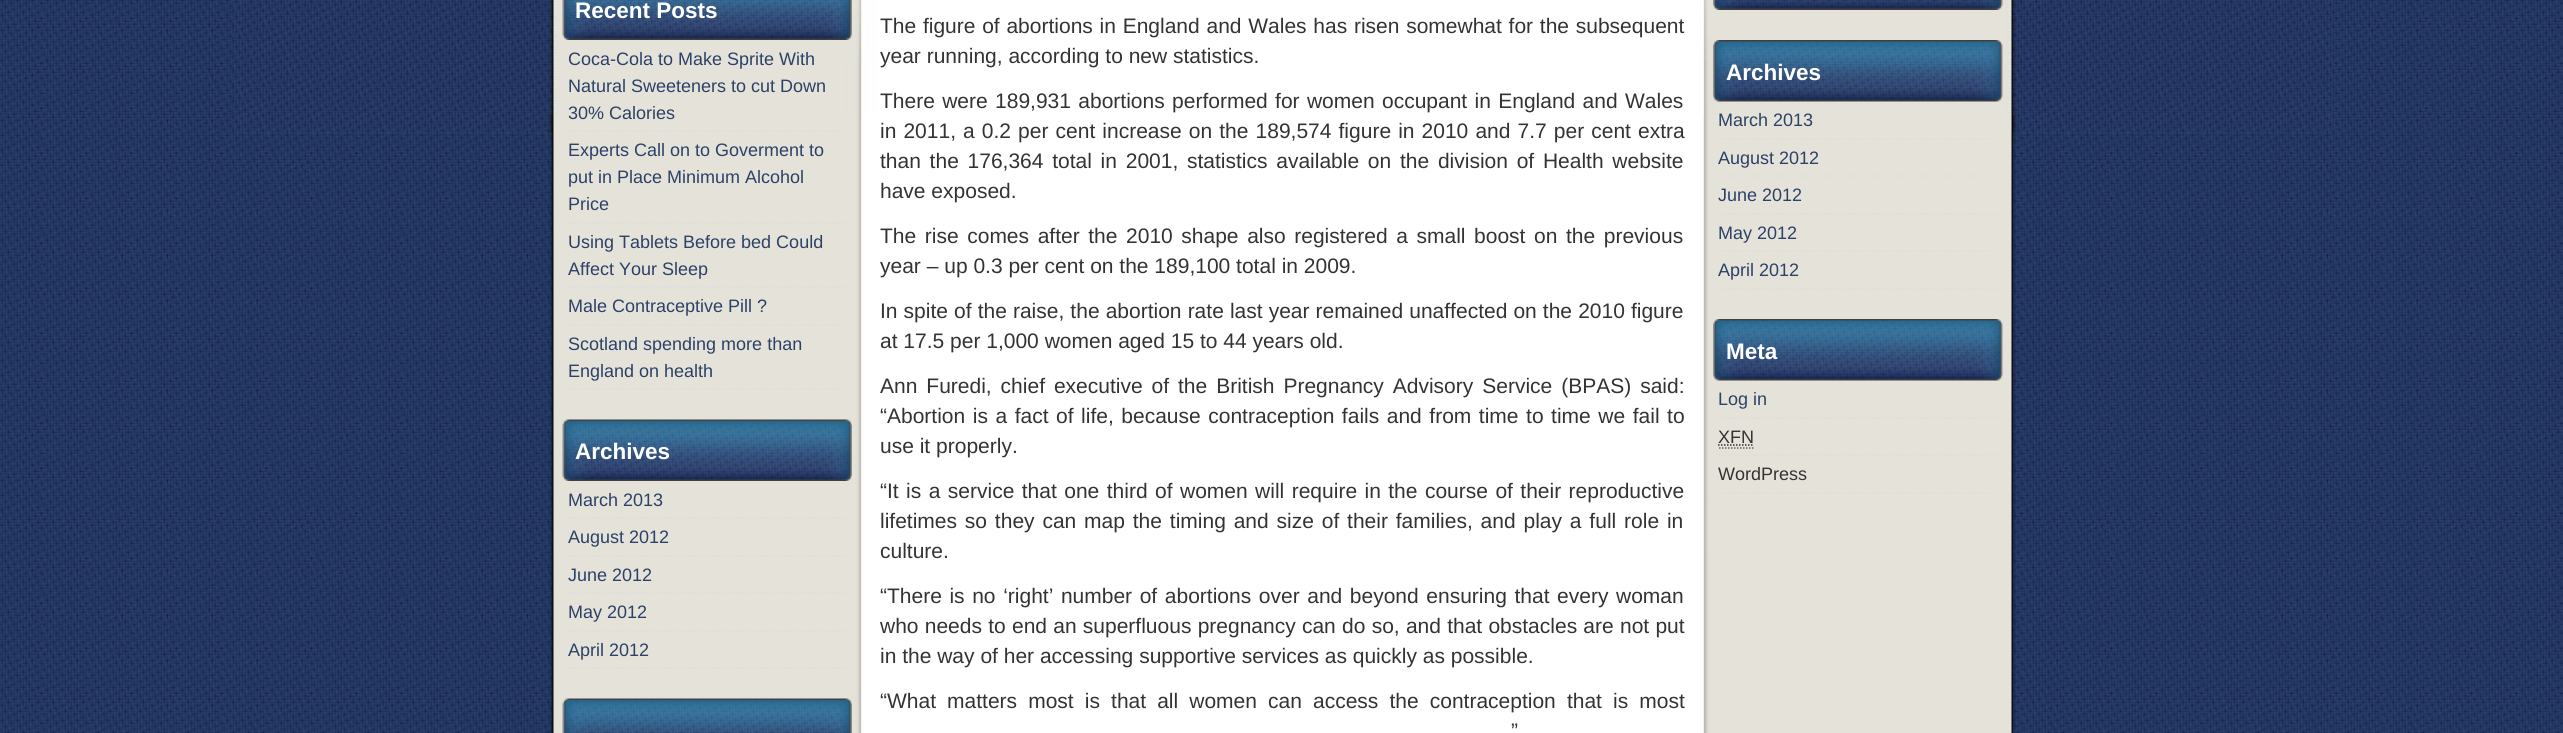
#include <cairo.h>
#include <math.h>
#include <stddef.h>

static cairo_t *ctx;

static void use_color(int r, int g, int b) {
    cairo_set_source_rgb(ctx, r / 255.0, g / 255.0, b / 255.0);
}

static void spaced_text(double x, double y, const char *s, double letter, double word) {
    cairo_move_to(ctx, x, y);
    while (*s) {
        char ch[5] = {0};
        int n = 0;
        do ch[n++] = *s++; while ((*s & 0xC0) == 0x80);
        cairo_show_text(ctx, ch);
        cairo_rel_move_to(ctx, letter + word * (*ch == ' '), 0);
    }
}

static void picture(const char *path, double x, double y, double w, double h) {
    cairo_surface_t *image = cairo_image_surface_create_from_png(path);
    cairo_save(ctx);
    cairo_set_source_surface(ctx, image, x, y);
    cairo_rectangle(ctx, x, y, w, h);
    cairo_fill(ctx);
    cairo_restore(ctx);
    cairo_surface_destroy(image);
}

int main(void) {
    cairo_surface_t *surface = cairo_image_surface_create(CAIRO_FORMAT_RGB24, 2563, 733);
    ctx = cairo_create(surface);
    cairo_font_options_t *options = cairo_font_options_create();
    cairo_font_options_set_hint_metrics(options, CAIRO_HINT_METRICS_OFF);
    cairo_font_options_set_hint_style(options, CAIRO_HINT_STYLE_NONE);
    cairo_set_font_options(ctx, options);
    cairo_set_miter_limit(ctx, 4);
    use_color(255, 255, 255);
    cairo_paint(ctx);
    picture("img1.png", 0, 0, 2563, 733);
    picture("img2.png", 232, 0, 2101, 133);
    picture("img3.png", 549, 115, 1467, 618);
    picture("img4.png", 562, 0, 290, 40);
    cairo_select_font_face(ctx, "Liberation Sans", CAIRO_FONT_SLANT_NORMAL, CAIRO_FONT_WEIGHT_BOLD);
    cairo_set_font_size(ctx, 22.5);
    use_color(255, 255, 255);
    cairo_move_to(ctx, 575, 18);
    cairo_show_text(ctx, "Recent Posts");
    cairo_new_path(ctx);
    cairo_move_to(ctx, 568.5, 131);
    cairo_line_to(ctx, 846, 131);
    use_color(221, 221, 221);
    cairo_set_line_width(ctx, 1.5);
    cairo_set_dash(ctx, (double[]){1.5, 1.5}, 2, 0);
    cairo_stroke(ctx);
    cairo_select_font_face(ctx, "Liberation Sans", CAIRO_FONT_SLANT_NORMAL, CAIRO_FONT_WEIGHT_NORMAL);
    cairo_set_font_size(ctx, 18);
    use_color(44, 65, 104);
    cairo_move_to(ctx, 568, 65);
    cairo_show_text(ctx, "Coca-Cola to Make Sprite With");
    cairo_move_to(ctx, 568, 92);
    cairo_show_text(ctx, "Natural Sweeteners to cut Down");
    cairo_move_to(ctx, 568, 119);
    cairo_show_text(ctx, "30% Calories");
    cairo_new_path(ctx);
    cairo_move_to(ctx, 568.5, 223);
    cairo_line_to(ctx, 846, 223);
    use_color(221, 221, 221);
    cairo_stroke(ctx);
    use_color(44, 65, 104);
    cairo_move_to(ctx, 568, 156);
    cairo_show_text(ctx, "Experts Call on to Goverment to");
    cairo_move_to(ctx, 568, 183);
    cairo_show_text(ctx, "put in Place Minimum Alcohol");
    cairo_move_to(ctx, 568, 210);
    cairo_show_text(ctx, "Price");
    cairo_new_path(ctx);
    cairo_move_to(ctx, 568.5, 287);
    cairo_line_to(ctx, 846, 287);
    use_color(221, 221, 221);
    cairo_stroke(ctx);
    use_color(44, 65, 104);
    cairo_move_to(ctx, 568, 248);
    cairo_show_text(ctx, "Using Tablets Before bed Could");
    cairo_move_to(ctx, 568, 275);
    cairo_show_text(ctx, "Affect Your Sleep");
    cairo_new_path(ctx);
    cairo_move_to(ctx, 568.5, 325);
    cairo_line_to(ctx, 846, 325);
    use_color(221, 221, 221);
    cairo_stroke(ctx);
    use_color(44, 65, 104);
    cairo_move_to(ctx, 568, 312);
    cairo_show_text(ctx, "Male Contraceptive Pill ?");
    cairo_new_path(ctx);
    cairo_move_to(ctx, 568.5, 389);
    cairo_line_to(ctx, 846, 389);
    use_color(221, 221, 221);
    cairo_stroke(ctx);
    use_color(44, 65, 104);
    cairo_move_to(ctx, 568, 350);
    cairo_show_text(ctx, "Scotland spending more than");
    cairo_move_to(ctx, 568, 377);
    cairo_show_text(ctx, "England on health");
    picture("img5.png", 562, 419, 290, 62);
    cairo_select_font_face(ctx, "Liberation Sans", CAIRO_FONT_SLANT_NORMAL, CAIRO_FONT_WEIGHT_BOLD);
    cairo_set_font_size(ctx, 22.5);
    use_color(255, 255, 255);
    cairo_move_to(ctx, 575, 459);
    cairo_show_text(ctx, "Archives");
    cairo_new_path(ctx);
    cairo_move_to(ctx, 568.5, 518);
    cairo_line_to(ctx, 846, 518);
    use_color(221, 221, 221);
    cairo_stroke(ctx);
    cairo_select_font_face(ctx, "Liberation Sans", CAIRO_FONT_SLANT_NORMAL, CAIRO_FONT_WEIGHT_NORMAL);
    cairo_set_font_size(ctx, 18);
    use_color(44, 65, 104);
    cairo_move_to(ctx, 568, 506);
    cairo_show_text(ctx, "March 2013");
    cairo_new_path(ctx);
    cairo_move_to(ctx, 568.5, 556);
    cairo_line_to(ctx, 846, 556);
    use_color(221, 221, 221);
    cairo_stroke(ctx);
    use_color(44, 65, 104);
    cairo_move_to(ctx, 568, 543);
    cairo_show_text(ctx, "August 2012");
    cairo_new_path(ctx);
    cairo_move_to(ctx, 568.5, 593);
    cairo_line_to(ctx, 846, 593);
    use_color(221, 221, 221);
    cairo_stroke(ctx);
    use_color(44, 65, 104);
    cairo_move_to(ctx, 568, 581);
    cairo_show_text(ctx, "June 2012");
    cairo_new_path(ctx);
    cairo_move_to(ctx, 568.5, 631);
    cairo_line_to(ctx, 846, 631);
    use_color(221, 221, 221);
    cairo_stroke(ctx);
    use_color(44, 65, 104);
    cairo_move_to(ctx, 568, 618);
    cairo_show_text(ctx, "May 2012");
    cairo_new_path(ctx);
    cairo_move_to(ctx, 568.5, 668);
    cairo_line_to(ctx, 846, 668);
    use_color(221, 221, 221);
    cairo_stroke(ctx);
    use_color(44, 65, 104);
    cairo_move_to(ctx, 568, 656);
    cairo_show_text(ctx, "April 2012");
    picture("img6.png", 562, 698, 290, 35);
    cairo_set_font_size(ctx, 21);
    use_color(51, 51, 51);
    spaced_text(880, 33, "The figure of abortions in England and Wales has risen somewhat for the subsequent", 0, 0.9);
    cairo_move_to(ctx, 880, 63);
    cairo_show_text(ctx, "year running, according to new statistics.");
    spaced_text(880, 108, "There were 189,931 abortions performed for women occupant in England and Wales", 0, 1.5);
    spaced_text(880, 138, "in 2011, a 0.2 per cent increase on the 189,574 figure in 2010 and 7.7 per cent extra", 0, 1.25);
    spaced_text(880, 168, "than the 176,364 total in 2001, statistics available on the division of Health website", 0, 2.9);
    cairo_move_to(ctx, 880, 198);
    cairo_show_text(ctx, "have exposed.");
    spaced_text(880, 243, "The rise comes after the 2010 shape also registered a small boost on the previous", 0, 2.75);
    cairo_move_to(ctx, 880, 273);
    cairo_show_text(ctx, "year – up 0.3 per cent on the 189,100 total in 2009.");
    spaced_text(880, 318, "In spite of the raise, the abortion rate last year remained unaffected on the 2010 figure", 0, 0.25);
    cairo_move_to(ctx, 880, 348);
    cairo_show_text(ctx, "at 17.5 per 1,000 women aged 15 to 44 years old.");
    spaced_text(880, 393, "Ann Furedi, chief executive of the British Pregnancy Advisory Service (BPAS) said:", 0, 3.1);
    spaced_text(880, 423, "“Abortion is a fact of life, because contraception fails and from time to time we fail to", 0, 1.7);
    cairo_move_to(ctx, 880, 453);
    cairo_show_text(ctx, "use it properly.");
    spaced_text(880, 498, "“It is a service that one third of women will require in the course of their reproductive", 0, 1.6);
    spaced_text(880, 528, "lifetimes so they can map the timing and size of their families, and play a full role in", 0, 2);
    cairo_move_to(ctx, 880, 558);
    cairo_show_text(ctx, "culture.");
    spaced_text(880, 603, "“There is no ‘right’ number of abortions over and beyond ensuring that every woman", 0, 1.75);
    spaced_text(880, 633, "who needs to end an superfluous pregnancy can do so, and that obstacles are not put", 0, 0.4);
    cairo_move_to(ctx, 880, 663);
    cairo_show_text(ctx, "in the way of her accessing supportive services as quickly as possible.");
    spaced_text(880, 708, "“What matters most is that all women can access the contraception that is most", 0, 5.25);
    cairo_move_to(ctx, 1511, 738);
    cairo_show_text(ctx, "”");
    picture("img7.png", 1713, 0, 290, 10);
    picture("img8.png", 1713, 40, 290, 62);
    cairo_select_font_face(ctx, "Liberation Sans", CAIRO_FONT_SLANT_NORMAL, CAIRO_FONT_WEIGHT_BOLD);
    cairo_set_font_size(ctx, 22.5);
    use_color(255, 255, 255);
    cairo_move_to(ctx, 1726, 80);
    cairo_show_text(ctx, "Archives");
    cairo_new_path(ctx);
    cairo_move_to(ctx, 1719, 139);
    cairo_line_to(ctx, 1996.5, 139);
    use_color(221, 221, 221);
    cairo_stroke(ctx);
    cairo_select_font_face(ctx, "Liberation Sans", CAIRO_FONT_SLANT_NORMAL, CAIRO_FONT_WEIGHT_NORMAL);
    cairo_set_font_size(ctx, 18);
    use_color(44, 65, 104);
    cairo_move_to(ctx, 1718, 126);
    cairo_show_text(ctx, "March 2013");
    cairo_new_path(ctx);
    cairo_move_to(ctx, 1719, 176);
    cairo_line_to(ctx, 1996.5, 176);
    use_color(221, 221, 221);
    cairo_stroke(ctx);
    use_color(44, 65, 104);
    cairo_move_to(ctx, 1718, 164);
    cairo_show_text(ctx, "August 2012");
    cairo_new_path(ctx);
    cairo_move_to(ctx, 1719, 214);
    cairo_line_to(ctx, 1996.5, 214);
    use_color(221, 221, 221);
    cairo_stroke(ctx);
    use_color(44, 65, 104);
    cairo_move_to(ctx, 1718, 201);
    cairo_show_text(ctx, "June 2012");
    cairo_new_path(ctx);
    cairo_move_to(ctx, 1719, 251);
    cairo_line_to(ctx, 1996.5, 251);
    use_color(221, 221, 221);
    cairo_stroke(ctx);
    use_color(44, 65, 104);
    cairo_move_to(ctx, 1718, 239);
    cairo_show_text(ctx, "May 2012");
    cairo_new_path(ctx);
    cairo_move_to(ctx, 1719, 289);
    cairo_line_to(ctx, 1996.5, 289);
    use_color(221, 221, 221);
    cairo_stroke(ctx);
    use_color(44, 65, 104);
    cairo_move_to(ctx, 1718, 276);
    cairo_show_text(ctx, "April 2012");
    picture("img9.png", 1713, 319, 290, 62);
    cairo_select_font_face(ctx, "Liberation Sans", CAIRO_FONT_SLANT_NORMAL, CAIRO_FONT_WEIGHT_BOLD);
    cairo_set_font_size(ctx, 22.5);
    use_color(255, 255, 255);
    cairo_move_to(ctx, 1726, 359);
    cairo_show_text(ctx, "Meta");
    cairo_new_path(ctx);
    cairo_move_to(ctx, 1719, 418);
    cairo_line_to(ctx, 1996.5, 418);
    use_color(221, 221, 221);
    cairo_stroke(ctx);
    cairo_select_font_face(ctx, "Liberation Sans", CAIRO_FONT_SLANT_NORMAL, CAIRO_FONT_WEIGHT_NORMAL);
    cairo_set_font_size(ctx, 18);
    use_color(44, 65, 104);
    cairo_move_to(ctx, 1718, 405);
    cairo_show_text(ctx, "Log in");
    cairo_new_path(ctx);
    cairo_move_to(ctx, 1719, 455);
    cairo_line_to(ctx, 1996.5, 455);
    use_color(221, 221, 221);
    cairo_stroke(ctx);
    use_color(51, 51, 51);
    cairo_move_to(ctx, 1718, 443);
    cairo_show_text(ctx, "XFN");
    cairo_new_path(ctx);
    cairo_move_to(ctx, 1719, 448);
    cairo_line_to(ctx, 1755, 448);
    use_color(102, 102, 102);
    cairo_stroke(ctx);
    cairo_new_path(ctx);
    cairo_move_to(ctx, 1718, 445);
    cairo_line_to(ctx, 1754, 445);
    use_color(51, 51, 51);
    cairo_stroke(ctx);
    cairo_new_path(ctx);
    cairo_move_to(ctx, 1719, 493);
    cairo_line_to(ctx, 1996.5, 493);
    use_color(221, 221, 221);
    cairo_stroke(ctx);
    use_color(51, 51, 51);
    cairo_move_to(ctx, 1718, 480);
    cairo_show_text(ctx, "WordPress");
    cairo_surface_write_to_png(surface, "result.png");
    cairo_font_options_destroy(options);
    cairo_destroy(ctx);
    cairo_surface_destroy(surface);
    return 0;
}
